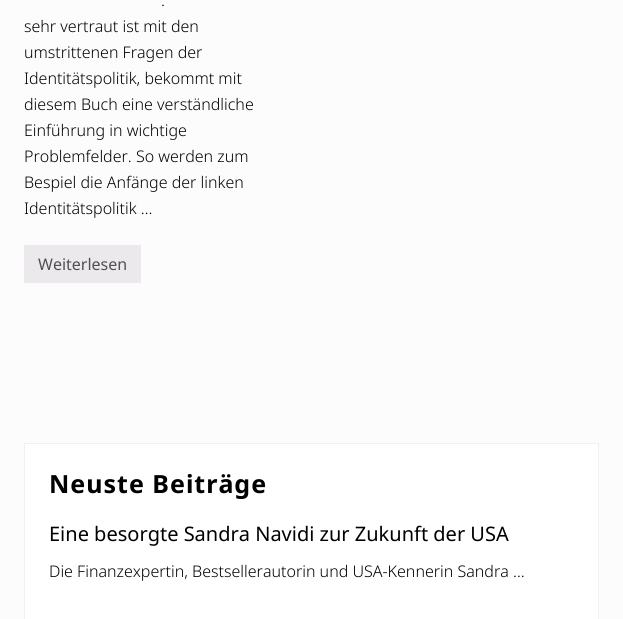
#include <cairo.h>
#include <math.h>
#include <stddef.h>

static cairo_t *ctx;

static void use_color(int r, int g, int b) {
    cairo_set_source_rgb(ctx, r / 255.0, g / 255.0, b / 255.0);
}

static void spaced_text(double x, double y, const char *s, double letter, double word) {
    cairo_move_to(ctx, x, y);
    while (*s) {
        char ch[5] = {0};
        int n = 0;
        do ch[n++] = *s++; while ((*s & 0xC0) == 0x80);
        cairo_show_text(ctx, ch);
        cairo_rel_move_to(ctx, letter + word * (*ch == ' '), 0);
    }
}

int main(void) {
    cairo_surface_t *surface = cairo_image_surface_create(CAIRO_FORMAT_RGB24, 623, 619);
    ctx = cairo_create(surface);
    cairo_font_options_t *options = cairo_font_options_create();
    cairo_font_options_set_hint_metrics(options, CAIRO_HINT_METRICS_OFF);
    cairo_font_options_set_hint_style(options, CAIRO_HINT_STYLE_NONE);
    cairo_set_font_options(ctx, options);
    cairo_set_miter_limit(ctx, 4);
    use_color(252, 252, 252);
    cairo_paint(ctx);
    cairo_select_font_face(ctx, "Noto Sans Light", CAIRO_FONT_SLANT_NORMAL, CAIRO_FONT_WEIGHT_NORMAL);
    cairo_set_font_size(ctx, 16);
    use_color(0, 0, 0);
    cairo_move_to(ctx, 161, 6);
    cairo_show_text(ctx, ".");
    cairo_move_to(ctx, 24, 32);
    cairo_show_text(ctx, "sehr vertraut ist mit den");
    cairo_move_to(ctx, 24, 58);
    cairo_show_text(ctx, "umstrittenen Fragen der");
    cairo_move_to(ctx, 24, 84);
    cairo_show_text(ctx, "Identitätspolitik, bekommt mit");
    cairo_move_to(ctx, 24, 110);
    cairo_show_text(ctx, "diesem Buch eine verständliche");
    cairo_move_to(ctx, 24, 136);
    cairo_show_text(ctx, "Einführung in wichtige");
    cairo_move_to(ctx, 24, 162);
    cairo_show_text(ctx, "Problemfelder. So werden zum");
    cairo_move_to(ctx, 24, 188);
    cairo_show_text(ctx, "Bespiel die Anfänge der linken");
    cairo_move_to(ctx, 24, 214);
    cairo_show_text(ctx, "Identitätspolitik …");
    use_color(235, 233, 235);
    cairo_rectangle(ctx, 24, 245, 117, 38);
    cairo_fill(ctx);
    cairo_select_font_face(ctx, "Noto Sans", CAIRO_FONT_SLANT_NORMAL, CAIRO_FONT_WEIGHT_NORMAL);
    use_color(81, 81, 81);
    cairo_move_to(ctx, 38, 270);
    cairo_show_text(ctx, "Weiterlesen");
    use_color(255, 255, 255);
    cairo_rectangle(ctx, 24.5, 443.5, 574, 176);
    cairo_fill_preserve(ctx);
    use_color(240, 240, 240);
    cairo_set_line_width(ctx, 1);
    cairo_stroke(ctx);
    cairo_select_font_face(ctx, "Noto Sans", CAIRO_FONT_SLANT_NORMAL, CAIRO_FONT_WEIGHT_BOLD);
    cairo_set_font_size(ctx, 25);
    use_color(0, 0, 0);
    spaced_text(49, 493, "Neuste Beiträge", 1, 0);
    cairo_select_font_face(ctx, "Noto Sans", CAIRO_FONT_SLANT_NORMAL, CAIRO_FONT_WEIGHT_NORMAL);
    cairo_set_font_size(ctx, 20);
    cairo_move_to(ctx, 49, 541);
    cairo_show_text(ctx, "Eine besorgte Sandra Navidi zur Zukunft der USA");
    cairo_select_font_face(ctx, "Noto Sans Light", CAIRO_FONT_SLANT_NORMAL, CAIRO_FONT_WEIGHT_NORMAL);
    cairo_set_font_size(ctx, 16);
    cairo_move_to(ctx, 49, 577);
    cairo_show_text(ctx, "Die Finanzexpertin, Bestsellerautorin und USA-Kennerin Sandra …");
    cairo_surface_write_to_png(surface, "result.png");
    cairo_font_options_destroy(options);
    cairo_destroy(ctx);
    cairo_surface_destroy(surface);
    return 0;
}
